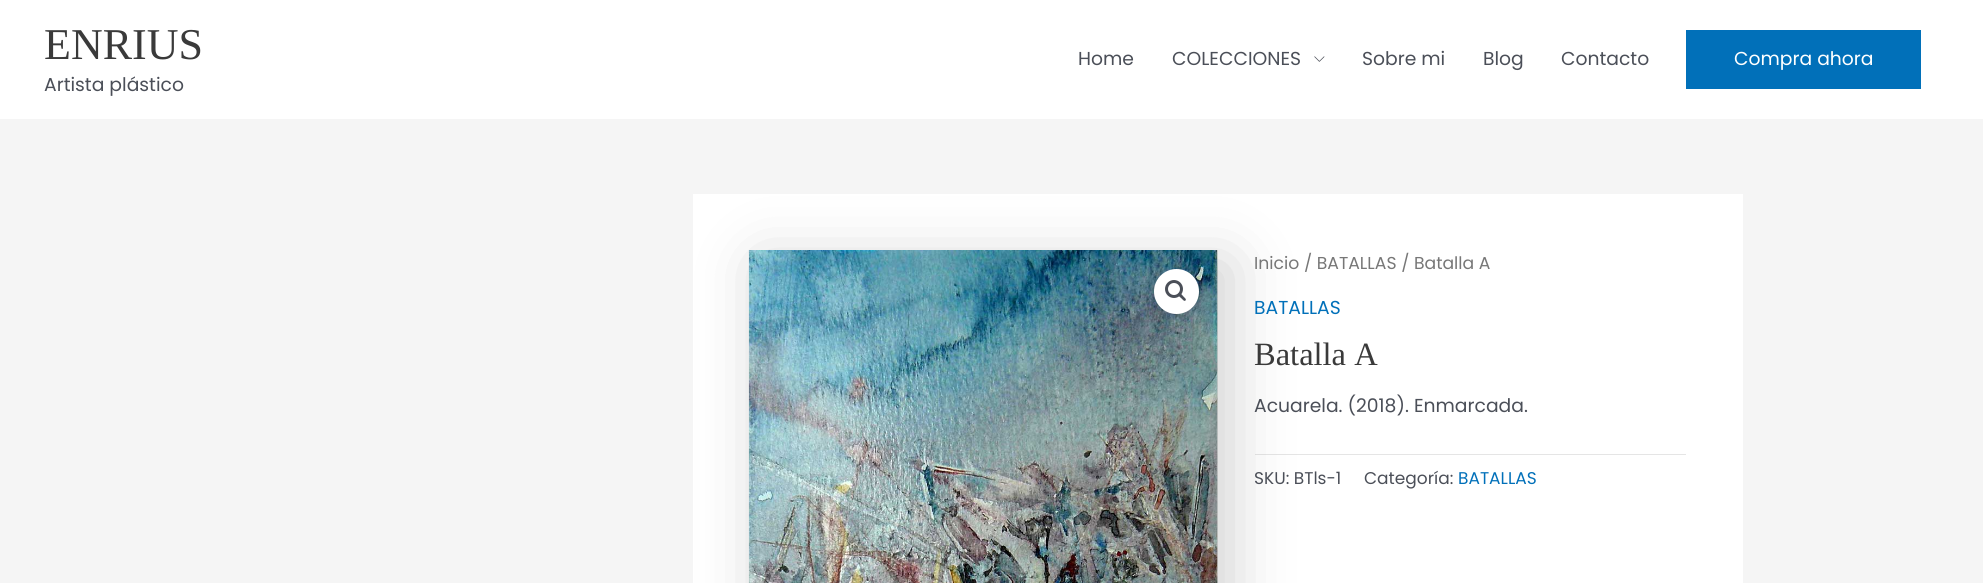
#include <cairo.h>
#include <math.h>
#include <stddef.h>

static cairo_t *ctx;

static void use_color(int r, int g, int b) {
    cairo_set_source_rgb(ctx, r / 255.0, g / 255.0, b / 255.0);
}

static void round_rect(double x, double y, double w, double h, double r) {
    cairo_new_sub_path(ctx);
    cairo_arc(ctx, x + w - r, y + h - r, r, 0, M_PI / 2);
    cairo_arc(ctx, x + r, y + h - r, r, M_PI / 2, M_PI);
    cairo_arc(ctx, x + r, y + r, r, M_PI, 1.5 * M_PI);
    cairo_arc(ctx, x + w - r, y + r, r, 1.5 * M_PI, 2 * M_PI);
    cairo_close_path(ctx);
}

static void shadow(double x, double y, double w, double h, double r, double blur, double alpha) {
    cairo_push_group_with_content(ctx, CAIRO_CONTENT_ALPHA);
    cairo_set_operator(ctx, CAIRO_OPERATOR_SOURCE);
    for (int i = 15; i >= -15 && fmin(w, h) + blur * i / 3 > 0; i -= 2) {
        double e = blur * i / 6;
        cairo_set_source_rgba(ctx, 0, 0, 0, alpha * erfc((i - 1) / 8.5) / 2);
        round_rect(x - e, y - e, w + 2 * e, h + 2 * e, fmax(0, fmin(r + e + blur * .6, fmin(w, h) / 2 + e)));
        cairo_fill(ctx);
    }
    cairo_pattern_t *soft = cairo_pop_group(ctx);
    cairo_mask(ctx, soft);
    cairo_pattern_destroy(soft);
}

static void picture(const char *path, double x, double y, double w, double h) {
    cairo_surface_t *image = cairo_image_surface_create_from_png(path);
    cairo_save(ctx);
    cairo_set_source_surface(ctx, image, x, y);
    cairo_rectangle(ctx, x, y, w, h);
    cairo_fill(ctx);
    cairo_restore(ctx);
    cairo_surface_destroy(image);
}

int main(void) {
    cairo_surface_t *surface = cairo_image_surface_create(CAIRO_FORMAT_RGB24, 1983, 583);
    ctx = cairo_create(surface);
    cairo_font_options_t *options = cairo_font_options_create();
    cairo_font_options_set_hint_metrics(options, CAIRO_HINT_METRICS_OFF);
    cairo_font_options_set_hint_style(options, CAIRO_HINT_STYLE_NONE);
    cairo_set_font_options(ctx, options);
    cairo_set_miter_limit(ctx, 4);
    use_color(245, 245, 245);
    cairo_paint(ctx);
    use_color(255, 255, 255);
    cairo_rectangle(ctx, 0, 0, 1983, 119);
    cairo_fill(ctx);
    cairo_select_font_face(ctx, "Liberation Serif", CAIRO_FONT_SLANT_NORMAL, CAIRO_FONT_WEIGHT_NORMAL);
    cairo_set_font_size(ctx, 44);
    use_color(58, 58, 58);
    cairo_move_to(ctx, 44, 59);
    cairo_show_text(ctx, "ENRIUS");
    cairo_select_font_face(ctx, "Poppins", CAIRO_FONT_SLANT_NORMAL, CAIRO_FONT_WEIGHT_NORMAL);
    cairo_set_font_size(ctx, 18.75);
    use_color(75, 79, 88);
    cairo_move_to(ctx, 44, 91);
    cairo_show_text(ctx, "Artista plástico");
    cairo_move_to(ctx, 1078, 65);
    cairo_show_text(ctx, "Home");
    cairo_move_to(ctx, 1172, 65);
    cairo_show_text(ctx, "COLECCIONES");
    picture("img1.png", 1314, 56, 11, 6);
    cairo_move_to(ctx, 1362, 65);
    cairo_show_text(ctx, "Sobre mi");
    cairo_move_to(ctx, 1483, 65);
    cairo_show_text(ctx, "Blog");
    cairo_move_to(ctx, 1561, 65);
    cairo_show_text(ctx, "Contacto");
    use_color(1, 112, 185);
    cairo_rectangle(ctx, 1686, 30, 235, 59);
    cairo_fill(ctx);
    use_color(255, 255, 255);
    cairo_move_to(ctx, 1734, 65);
    cairo_show_text(ctx, "Compra ahora");
    cairo_rectangle(ctx, 693, 194, 1050, 389);
    cairo_fill(ctx);
    use_color(229, 229, 229);
    cairo_rectangle(ctx, 1255, 454, 431, 1);
    cairo_fill(ctx);
    use_color(67, 67, 67);
    shadow(761, 263, 469, 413, 0, 31, 0.25);
    cairo_save(ctx);
    cairo_rectangle(ctx, 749, 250, 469, 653);
    cairo_clip(ctx);
    shadow(761, 263, 469, 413, 0, 31, 0.25);
    cairo_restore(ctx);
    picture("img2.png", 748, 250, 470, 333);
    use_color(255, 255, 255);
    cairo_arc(ctx, 1176.5, 291.5, 22.5, 0, 2 * M_PI);
    cairo_fill(ctx);
    cairo_arc(ctx, 1174, 289, 7.5, 0, 2 * M_PI);
    use_color(75, 79, 88);
    cairo_set_line_width(ctx, 3);
    cairo_stroke(ctx);
    cairo_new_path(ctx);
    cairo_move_to(ctx, 1178.5, 293.5);
    cairo_curve_to(ctx, 1180, 292, 1182, 295, 1183, 296);
    cairo_curve_to(ctx, 1183.5, 297, 1187, 299, 1185.5, 300.5);
    cairo_curve_to(ctx, 1184, 302, 1182, 298.5, 1181, 298);
    cairo_curve_to(ctx, 1180, 297, 1177, 295, 1178.5, 293.5);
    cairo_close_path(ctx);
    cairo_fill(ctx);
    cairo_set_font_size(ctx, 17.25);
    use_color(119, 119, 119);
    cairo_move_to(ctx, 1254, 269);
    cairo_show_text(ctx, "Inicio / BATALLAS / Batalla A");
    cairo_set_font_size(ctx, 18.75);
    use_color(1, 112, 185);
    cairo_move_to(ctx, 1254, 314);
    cairo_show_text(ctx, "BATALLAS");
    cairo_select_font_face(ctx, "Liberation Serif", CAIRO_FONT_SLANT_NORMAL, CAIRO_FONT_WEIGHT_NORMAL);
    cairo_set_font_size(ctx, 32.5);
    use_color(58, 58, 58);
    cairo_move_to(ctx, 1254, 365);
    cairo_show_text(ctx, "Batalla A");
    cairo_select_font_face(ctx, "Poppins", CAIRO_FONT_SLANT_NORMAL, CAIRO_FONT_WEIGHT_NORMAL);
    cairo_set_font_size(ctx, 18.75);
    use_color(75, 79, 88);
    cairo_move_to(ctx, 1254, 412);
    cairo_show_text(ctx, "Acuarela. (2018). Enmarcada.");
    cairo_set_font_size(ctx, 17);
    cairo_move_to(ctx, 1254, 484);
    cairo_show_text(ctx, "SKU: BTls-1");
    cairo_move_to(ctx, 1364, 484);
    cairo_show_text(ctx, "Categoría:");
    use_color(1, 112, 185);
    cairo_move_to(ctx, 1458, 484);
    cairo_show_text(ctx, "BATALLAS");
    cairo_surface_write_to_png(surface, "result.png");
    cairo_font_options_destroy(options);
    cairo_destroy(ctx);
    cairo_surface_destroy(surface);
    return 0;
}
